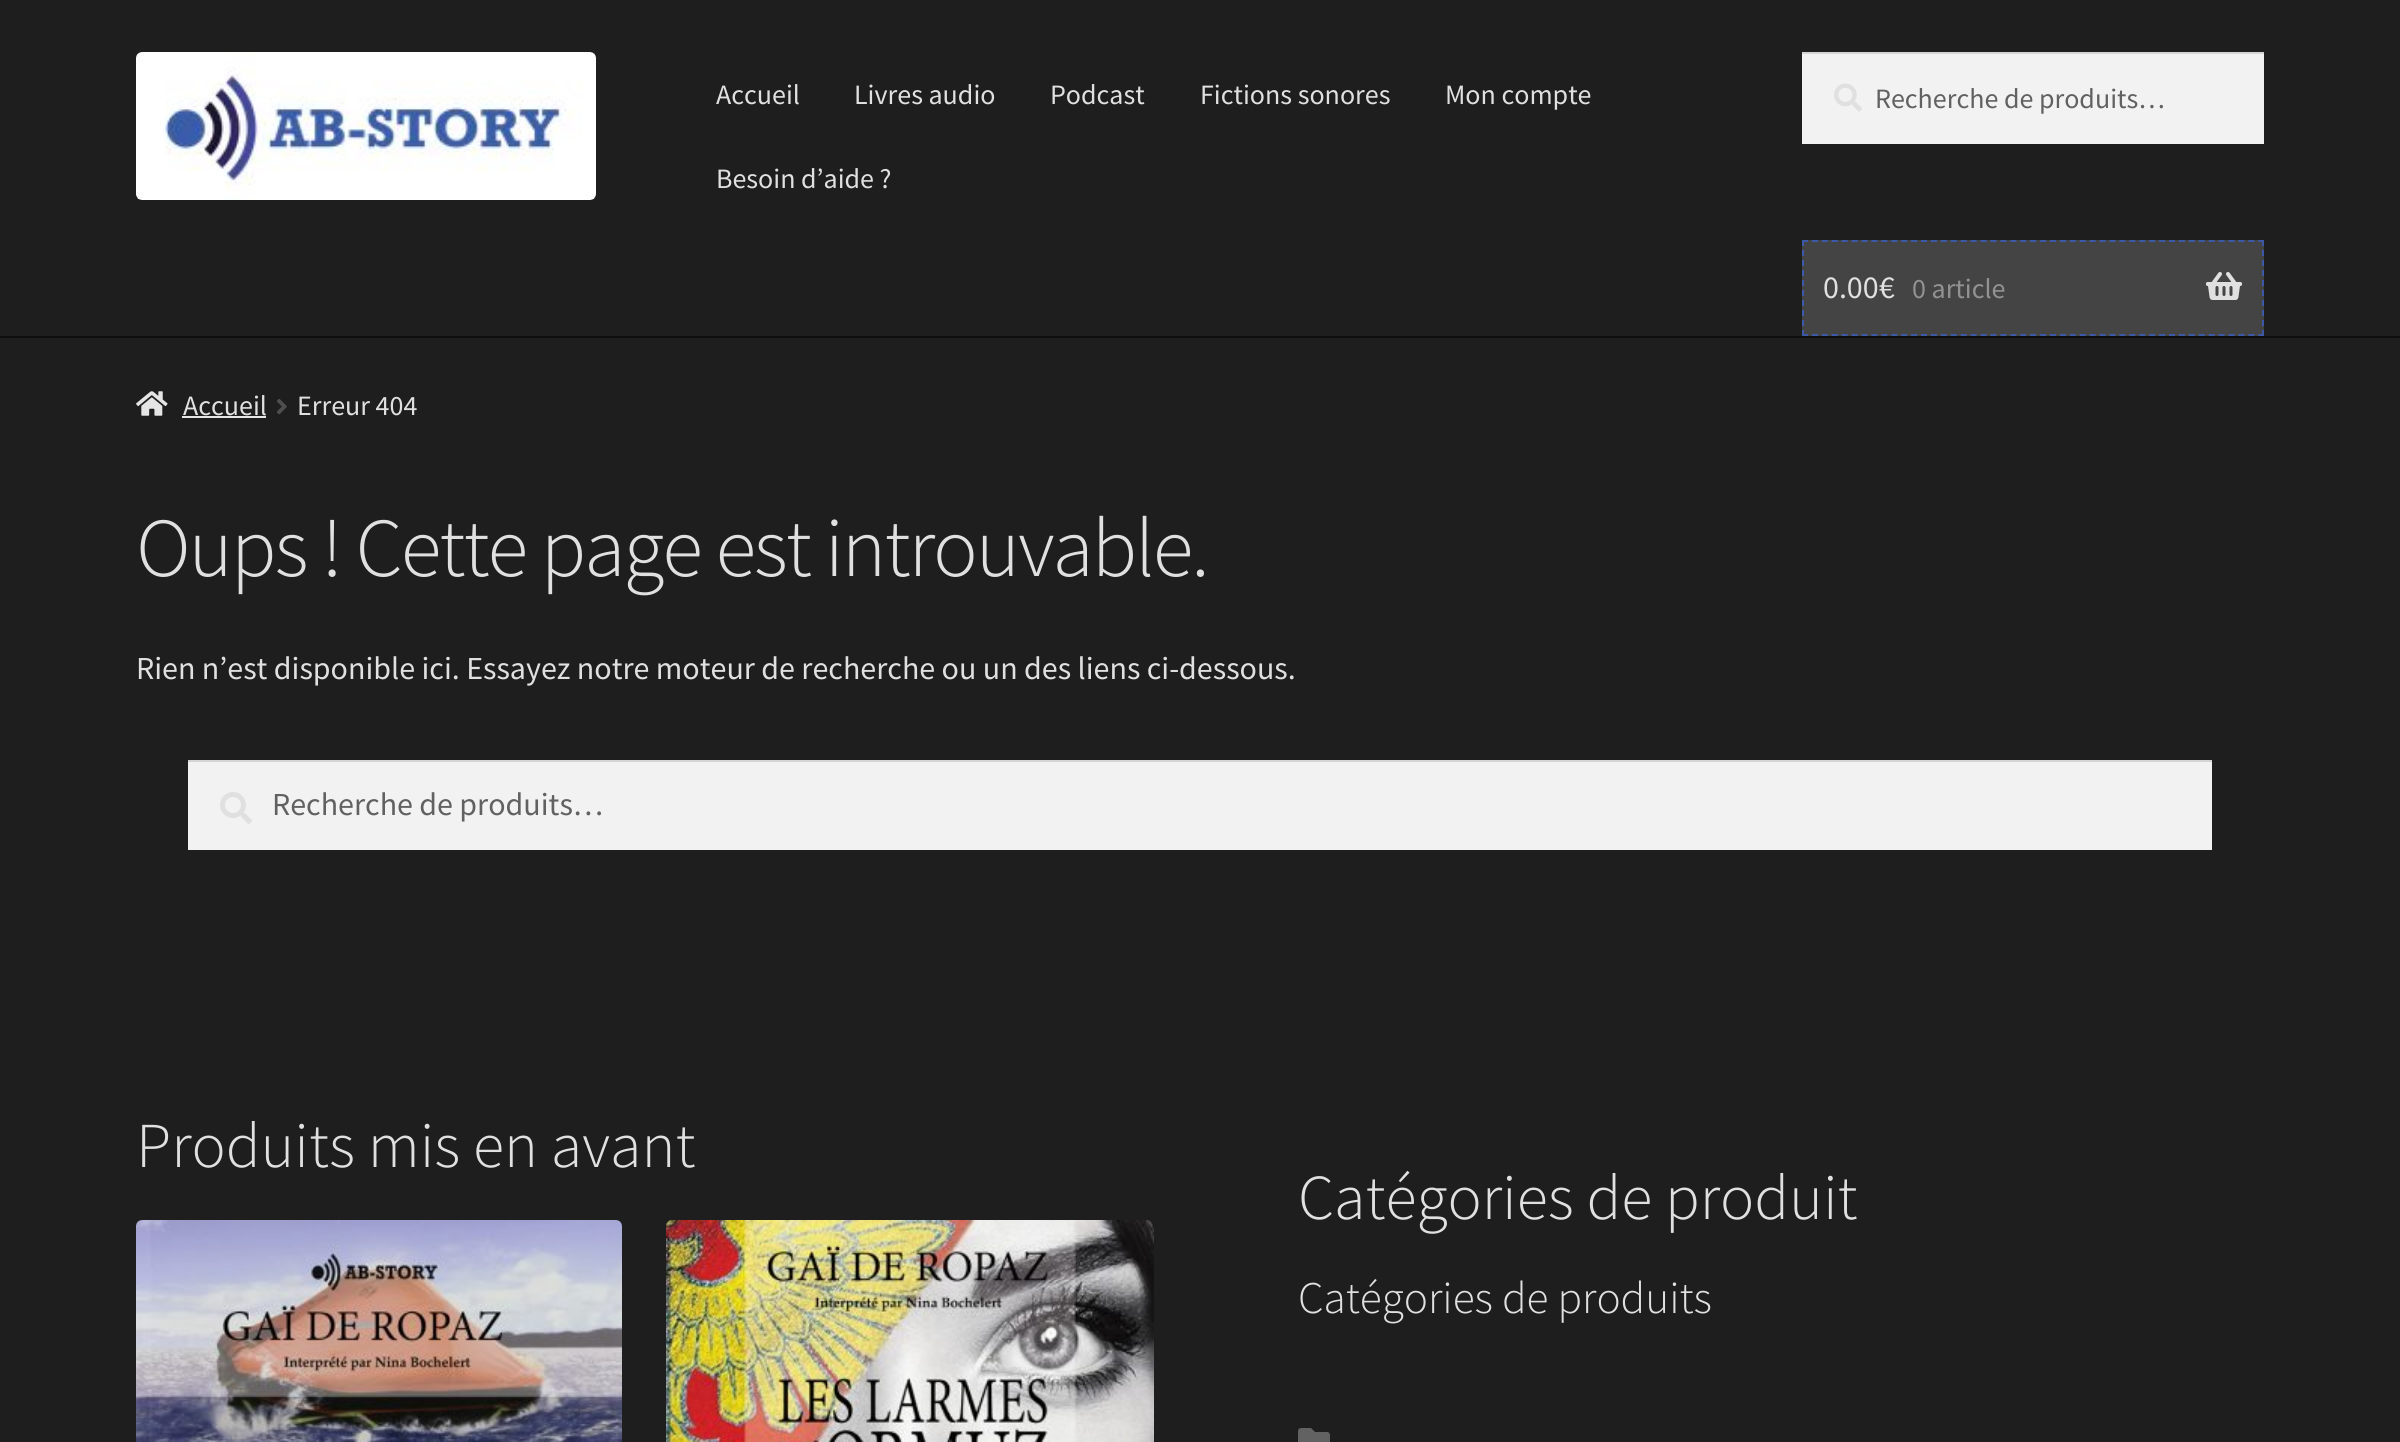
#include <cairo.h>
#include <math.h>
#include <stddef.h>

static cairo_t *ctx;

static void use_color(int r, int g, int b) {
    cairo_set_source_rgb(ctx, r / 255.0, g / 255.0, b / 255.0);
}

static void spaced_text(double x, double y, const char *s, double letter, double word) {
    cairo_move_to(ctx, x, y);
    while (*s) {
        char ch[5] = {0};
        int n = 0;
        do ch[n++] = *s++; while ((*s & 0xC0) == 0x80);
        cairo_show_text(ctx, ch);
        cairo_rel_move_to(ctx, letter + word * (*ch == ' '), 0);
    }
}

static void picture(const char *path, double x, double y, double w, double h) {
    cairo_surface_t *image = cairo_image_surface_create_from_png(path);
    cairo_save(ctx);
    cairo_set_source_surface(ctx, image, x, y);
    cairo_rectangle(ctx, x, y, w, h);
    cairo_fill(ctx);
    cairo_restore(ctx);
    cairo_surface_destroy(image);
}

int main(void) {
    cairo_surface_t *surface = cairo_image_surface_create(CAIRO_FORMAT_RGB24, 2400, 1442);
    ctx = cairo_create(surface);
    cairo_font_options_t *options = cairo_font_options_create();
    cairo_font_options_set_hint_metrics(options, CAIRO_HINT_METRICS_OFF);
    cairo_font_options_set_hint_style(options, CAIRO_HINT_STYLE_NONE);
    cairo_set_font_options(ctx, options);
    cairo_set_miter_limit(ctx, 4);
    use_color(30, 30, 30);
    cairo_paint(ctx);
    use_color(15, 15, 15);
    cairo_rectangle(ctx, 0, 336, 2400, 2);
    cairo_fill(ctx);
    picture("img1.png", 136, 52, 460, 148);
    cairo_select_font_face(ctx, "Source Sans Pro", CAIRO_FONT_SLANT_NORMAL, CAIRO_FONT_WEIGHT_NORMAL);
    cairo_set_font_size(ctx, 28);
    use_color(224, 224, 224);
    cairo_move_to(ctx, 716, 104);
    cairo_show_text(ctx, "Accueil");
    cairo_move_to(ctx, 854, 104);
    cairo_show_text(ctx, "Livres audio");
    cairo_move_to(ctx, 1050, 104);
    cairo_show_text(ctx, "Podcast");
    cairo_move_to(ctx, 1200, 104);
    cairo_show_text(ctx, "Fictions sonores");
    cairo_move_to(ctx, 1445, 104);
    cairo_show_text(ctx, "Mon compte");
    cairo_move_to(ctx, 716, 188);
    cairo_show_text(ctx, "Besoin d’aide ?");
    use_color(242, 242, 242);
    cairo_rectangle(ctx, 1802, 54, 462, 90);
    cairo_fill(ctx);
    picture("img2.png", 1834, 83, 28, 29);
    use_color(212, 212, 212);
    cairo_rectangle(ctx, 1802, 52, 462, 2);
    cairo_fill(ctx);
    use_color(97, 97, 97);
    cairo_move_to(ctx, 1875, 108);
    cairo_show_text(ctx, "Recherche de produits…");
    use_color(68, 68, 68);
    cairo_rectangle(ctx, 1802, 240, 462, 96);
    cairo_fill(ctx);
    cairo_new_path(ctx);
    cairo_move_to(ctx, 1802, 241);
    cairo_line_to(ctx, 2264, 241);
    use_color(60, 89, 167);
    cairo_set_dash(ctx, (double[]){6, 3.92}, 2, 0);
    cairo_stroke(ctx);
    cairo_new_path(ctx);
    cairo_move_to(ctx, 2263, 240);
    cairo_line_to(ctx, 2263, 336);
    cairo_set_dash(ctx, (double[]){6, 4}, 2, 0);
    cairo_stroke(ctx);
    cairo_new_path(ctx);
    cairo_move_to(ctx, 1802, 335);
    cairo_line_to(ctx, 2264, 335);
    cairo_set_dash(ctx, (double[]){6, 3.92}, 2, 0);
    cairo_stroke(ctx);
    cairo_new_path(ctx);
    cairo_move_to(ctx, 1803, 240);
    cairo_line_to(ctx, 1803, 336);
    cairo_set_dash(ctx, (double[]){6, 4}, 2, 0);
    cairo_stroke(ctx);
    cairo_set_font_size(ctx, 32);
    use_color(224, 224, 224);
    cairo_move_to(ctx, 1823, 298);
    cairo_show_text(ctx, "0.00€");
    cairo_set_font_size(ctx, 28);
    use_color(146, 146, 146);
    cairo_move_to(ctx, 1912, 298);
    cairo_show_text(ctx, "0 article");
    picture("img3.png", 2206, 272, 36, 28);
    picture("img4.png", 136, 391, 32, 25);
    use_color(224, 224, 224);
    cairo_move_to(ctx, 183, 415);
    cairo_show_text(ctx, "Accueil");
    use_color(229, 229, 229);
    cairo_rectangle(ctx, 182, 416, 84, 2);
    cairo_fill(ctx);
    picture("img5.png", 277, 399, 10, 16);
    use_color(224, 224, 224);
    cairo_move_to(ctx, 297, 415);
    cairo_show_text(ctx, "Erreur 404");
    cairo_select_font_face(ctx, "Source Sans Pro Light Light", CAIRO_FONT_SLANT_NORMAL, CAIRO_FONT_WEIGHT_NORMAL);
    cairo_set_font_size(ctx, 83.75);
    spaced_text(136, 576, "Oups ! Cette page est introuvable.", -2, 0);
    cairo_select_font_face(ctx, "Source Sans Pro", CAIRO_FONT_SLANT_NORMAL, CAIRO_FONT_WEIGHT_NORMAL);
    cairo_set_font_size(ctx, 32);
    cairo_move_to(ctx, 136, 679);
    cairo_show_text(ctx, "Rien n’est disponible ici. Essayez notre moteur de recherche ou un des liens ci-dessous.");
    use_color(242, 242, 242);
    cairo_rectangle(ctx, 188, 762, 2024, 88);
    cairo_fill(ctx);
    picture("img6.png", 220, 792, 32, 32);
    use_color(212, 212, 212);
    cairo_rectangle(ctx, 188, 760, 2024, 2);
    cairo_fill(ctx);
    use_color(97, 97, 97);
    cairo_move_to(ctx, 272, 815);
    cairo_show_text(ctx, "Recherche de produits…");
    cairo_select_font_face(ctx, "Source Sans Pro Light Light", CAIRO_FONT_SLANT_NORMAL, CAIRO_FONT_WEIGHT_NORMAL);
    cairo_set_font_size(ctx, 64);
    use_color(224, 224, 224);
    cairo_move_to(ctx, 136, 1167);
    cairo_show_text(ctx, "Produits mis en avant");
    picture("img7.png", 136, 1220, 486, 222);
    picture("img8.png", 666, 1220, 488, 222);
    cairo_move_to(ctx, 1298, 1219);
    cairo_show_text(ctx, "Catégories de produit");
    cairo_set_font_size(ctx, 45.25);
    cairo_move_to(ctx, 1298, 1313);
    cairo_show_text(ctx, "Catégories de produits");
    picture("img9.png", 1298, 1428, 32, 14);
    cairo_surface_write_to_png(surface, "result.png");
    cairo_font_options_destroy(options);
    cairo_destroy(ctx);
    cairo_surface_destroy(surface);
    return 0;
}
